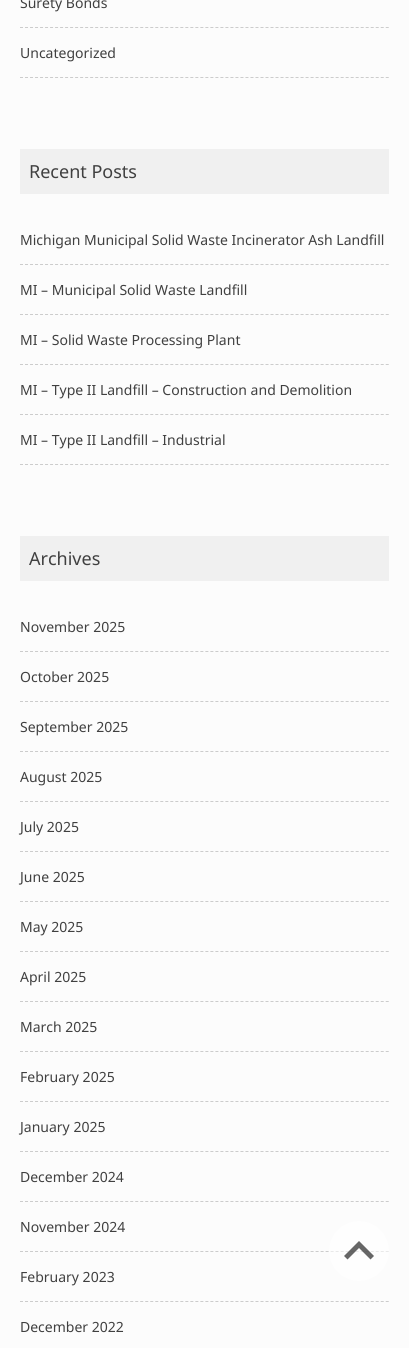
#include <cairo.h>
#include <math.h>
#include <stddef.h>

static cairo_t *ctx;

static void use_color(int r, int g, int b) {
    cairo_set_source_rgb(ctx, r / 255.0, g / 255.0, b / 255.0);
}

int main(void) {
    cairo_surface_t *surface = cairo_image_surface_create(CAIRO_FORMAT_RGB24, 409, 1348);
    ctx = cairo_create(surface);
    cairo_font_options_t *options = cairo_font_options_create();
    cairo_font_options_set_hint_metrics(options, CAIRO_HINT_METRICS_OFF);
    cairo_font_options_set_hint_style(options, CAIRO_HINT_STYLE_NONE);
    cairo_set_font_options(ctx, options);
    cairo_set_miter_limit(ctx, 4);
    use_color(252, 252, 252);
    cairo_paint(ctx);
    cairo_select_font_face(ctx, "Noto Sans", CAIRO_FONT_SLANT_NORMAL, CAIRO_FONT_WEIGHT_NORMAL);
    cairo_set_font_size(ctx, 14);
    use_color(64, 64, 64);
    cairo_move_to(ctx, 20, 8);
    cairo_show_text(ctx, "Surety Bonds");
    cairo_new_path(ctx);
    cairo_move_to(ctx, 20, 27.5);
    cairo_line_to(ctx, 389, 27.5);
    use_color(204, 204, 204);
    cairo_set_line_width(ctx, 1);
    cairo_set_dash(ctx, (double[]){3, 2.01}, 2, 0);
    cairo_stroke(ctx);
    cairo_new_path(ctx);
    cairo_move_to(ctx, 20, 77.5);
    cairo_line_to(ctx, 389, 77.5);
    cairo_stroke(ctx);
    use_color(64, 64, 64);
    cairo_move_to(ctx, 20, 58);
    cairo_show_text(ctx, "Uncategorized");
    use_color(240, 240, 240);
    cairo_rectangle(ctx, 20, 149, 369, 45);
    cairo_fill(ctx);
    cairo_set_font_size(ctx, 18);
    use_color(64, 64, 64);
    cairo_move_to(ctx, 29, 178);
    cairo_show_text(ctx, "Recent Posts");
    cairo_set_font_size(ctx, 14);
    cairo_move_to(ctx, 20, 245);
    cairo_show_text(ctx, "Michigan Municipal Solid Waste Incinerator Ash Landfill");
    cairo_new_path(ctx);
    cairo_move_to(ctx, 20, 264.5);
    cairo_line_to(ctx, 389, 264.5);
    use_color(204, 204, 204);
    cairo_stroke(ctx);
    use_color(64, 64, 64);
    cairo_move_to(ctx, 20, 295);
    cairo_show_text(ctx, "MI – Municipal Solid Waste Landfill");
    cairo_new_path(ctx);
    cairo_move_to(ctx, 20, 314.5);
    cairo_line_to(ctx, 389, 314.5);
    use_color(204, 204, 204);
    cairo_stroke(ctx);
    use_color(64, 64, 64);
    cairo_move_to(ctx, 20, 345);
    cairo_show_text(ctx, "MI – Solid Waste Processing Plant");
    cairo_new_path(ctx);
    cairo_move_to(ctx, 20, 364.5);
    cairo_line_to(ctx, 389, 364.5);
    use_color(204, 204, 204);
    cairo_stroke(ctx);
    use_color(64, 64, 64);
    cairo_move_to(ctx, 20, 395);
    cairo_show_text(ctx, "MI – Type II Landfill – Construction and Demolition");
    cairo_new_path(ctx);
    cairo_move_to(ctx, 20, 414.5);
    cairo_line_to(ctx, 389, 414.5);
    use_color(204, 204, 204);
    cairo_stroke(ctx);
    cairo_new_path(ctx);
    cairo_move_to(ctx, 20, 464.5);
    cairo_line_to(ctx, 389, 464.5);
    cairo_stroke(ctx);
    use_color(64, 64, 64);
    cairo_move_to(ctx, 20, 445);
    cairo_show_text(ctx, "MI – Type II Landfill – Industrial");
    use_color(240, 240, 240);
    cairo_rectangle(ctx, 20, 536, 369, 45);
    cairo_fill(ctx);
    cairo_set_font_size(ctx, 18);
    use_color(64, 64, 64);
    cairo_move_to(ctx, 29, 565);
    cairo_show_text(ctx, "Archives");
    cairo_set_font_size(ctx, 14);
    cairo_move_to(ctx, 20, 632);
    cairo_show_text(ctx, "November 2025");
    cairo_new_path(ctx);
    cairo_move_to(ctx, 20, 651.5);
    cairo_line_to(ctx, 389, 651.5);
    use_color(204, 204, 204);
    cairo_stroke(ctx);
    use_color(64, 64, 64);
    cairo_move_to(ctx, 20, 682);
    cairo_show_text(ctx, "October 2025");
    cairo_new_path(ctx);
    cairo_move_to(ctx, 20, 701.5);
    cairo_line_to(ctx, 389, 701.5);
    use_color(204, 204, 204);
    cairo_stroke(ctx);
    use_color(64, 64, 64);
    cairo_move_to(ctx, 20, 732);
    cairo_show_text(ctx, "September 2025");
    cairo_new_path(ctx);
    cairo_move_to(ctx, 20, 751.5);
    cairo_line_to(ctx, 389, 751.5);
    use_color(204, 204, 204);
    cairo_stroke(ctx);
    use_color(64, 64, 64);
    cairo_move_to(ctx, 20, 782);
    cairo_show_text(ctx, "August 2025");
    cairo_new_path(ctx);
    cairo_move_to(ctx, 20, 801.5);
    cairo_line_to(ctx, 389, 801.5);
    use_color(204, 204, 204);
    cairo_stroke(ctx);
    use_color(64, 64, 64);
    cairo_move_to(ctx, 20, 832);
    cairo_show_text(ctx, "July 2025");
    cairo_new_path(ctx);
    cairo_move_to(ctx, 20, 851.5);
    cairo_line_to(ctx, 389, 851.5);
    use_color(204, 204, 204);
    cairo_stroke(ctx);
    use_color(64, 64, 64);
    cairo_move_to(ctx, 20, 882);
    cairo_show_text(ctx, "June 2025");
    cairo_new_path(ctx);
    cairo_move_to(ctx, 20, 901.5);
    cairo_line_to(ctx, 389, 901.5);
    use_color(204, 204, 204);
    cairo_stroke(ctx);
    use_color(64, 64, 64);
    cairo_move_to(ctx, 20, 932);
    cairo_show_text(ctx, "May 2025");
    cairo_new_path(ctx);
    cairo_move_to(ctx, 20, 951.5);
    cairo_line_to(ctx, 389, 951.5);
    use_color(204, 204, 204);
    cairo_stroke(ctx);
    use_color(64, 64, 64);
    cairo_move_to(ctx, 20, 982);
    cairo_show_text(ctx, "April 2025");
    cairo_new_path(ctx);
    cairo_move_to(ctx, 20, 1001.5);
    cairo_line_to(ctx, 389, 1001.5);
    use_color(204, 204, 204);
    cairo_stroke(ctx);
    use_color(64, 64, 64);
    cairo_move_to(ctx, 20, 1032);
    cairo_show_text(ctx, "March 2025");
    cairo_new_path(ctx);
    cairo_move_to(ctx, 20, 1051.5);
    cairo_line_to(ctx, 389, 1051.5);
    use_color(204, 204, 204);
    cairo_stroke(ctx);
    use_color(64, 64, 64);
    cairo_move_to(ctx, 20, 1082);
    cairo_show_text(ctx, "February 2025");
    cairo_new_path(ctx);
    cairo_move_to(ctx, 20, 1101.5);
    cairo_line_to(ctx, 389, 1101.5);
    use_color(204, 204, 204);
    cairo_stroke(ctx);
    use_color(64, 64, 64);
    cairo_move_to(ctx, 20, 1132);
    cairo_show_text(ctx, "January 2025");
    cairo_new_path(ctx);
    cairo_move_to(ctx, 20, 1151.5);
    cairo_line_to(ctx, 389, 1151.5);
    use_color(204, 204, 204);
    cairo_stroke(ctx);
    use_color(64, 64, 64);
    cairo_move_to(ctx, 20, 1182);
    cairo_show_text(ctx, "December 2024");
    cairo_new_path(ctx);
    cairo_move_to(ctx, 20, 1201.5);
    cairo_line_to(ctx, 389, 1201.5);
    use_color(204, 204, 204);
    cairo_stroke(ctx);
    use_color(64, 64, 64);
    cairo_move_to(ctx, 20, 1232);
    cairo_show_text(ctx, "November 2024");
    cairo_new_path(ctx);
    cairo_move_to(ctx, 20, 1251.5);
    cairo_line_to(ctx, 389, 1251.5);
    use_color(204, 204, 204);
    cairo_stroke(ctx);
    use_color(64, 64, 64);
    cairo_move_to(ctx, 20, 1282);
    cairo_show_text(ctx, "February 2023");
    cairo_new_path(ctx);
    cairo_move_to(ctx, 20, 1301.5);
    cairo_line_to(ctx, 389, 1301.5);
    use_color(204, 204, 204);
    cairo_stroke(ctx);
    use_color(64, 64, 64);
    cairo_move_to(ctx, 20, 1332);
    cairo_show_text(ctx, "December 2022");
    cairo_set_source_rgba(ctx, 1, 1, 1, 0.56);
    cairo_new_path(ctx);
    cairo_arc(ctx, 359, 1251, 30, 0, 2 * M_PI);
    cairo_fill(ctx);
    cairo_set_source_rgba(ctx, 0.251, 0.251, 0.251, 0.8);
    cairo_new_path(ctx);
    cairo_move_to(ctx, 347.5, 1259.5);
    cairo_line_to(ctx, 344, 1256);
    cairo_line_to(ctx, 359, 1241);
    cairo_line_to(ctx, 374, 1256);
    cairo_line_to(ctx, 370.5, 1259.5);
    cairo_line_to(ctx, 359, 1248);
    cairo_close_path(ctx);
    cairo_fill(ctx);
    cairo_surface_write_to_png(surface, "result.png");
    cairo_font_options_destroy(options);
    cairo_destroy(ctx);
    cairo_surface_destroy(surface);
    return 0;
}
